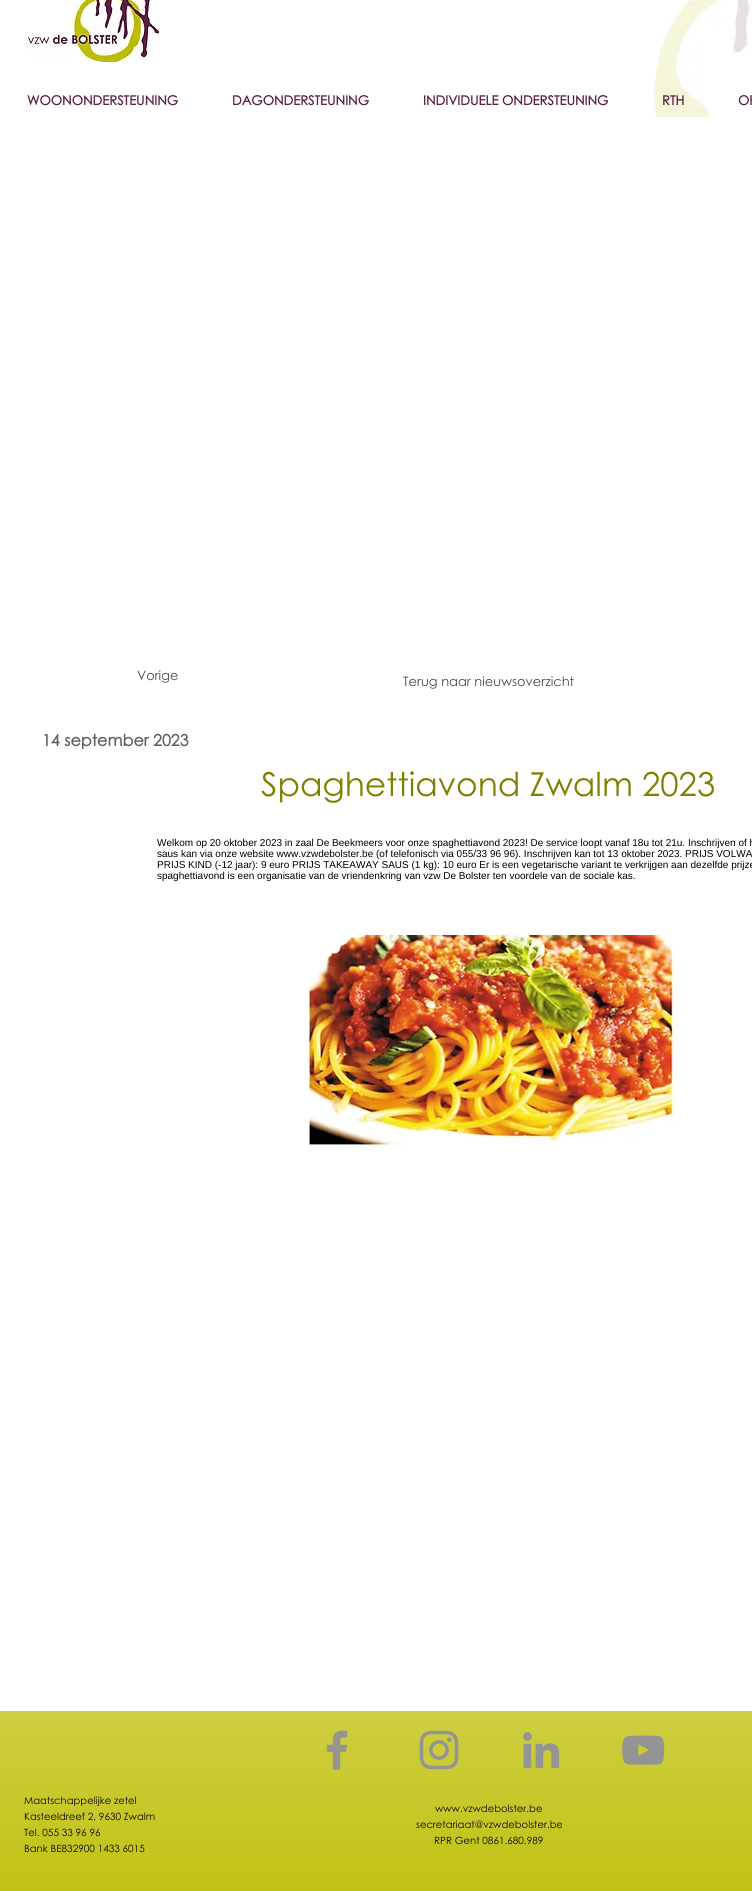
#include <cairo.h>
#include <math.h>
#include <stddef.h>

static cairo_t *ctx;

static void use_color(int r, int g, int b) {
    cairo_set_source_rgb(ctx, r / 255.0, g / 255.0, b / 255.0);
}

static void picture(const char *path, double x, double y, double w, double h) {
    cairo_surface_t *image = cairo_image_surface_create_from_png(path);
    cairo_save(ctx);
    cairo_set_source_surface(ctx, image, x, y);
    cairo_rectangle(ctx, x, y, w, h);
    cairo_fill(ctx);
    cairo_restore(ctx);
    cairo_surface_destroy(image);
}

int main(void) {
    cairo_surface_t *surface = cairo_image_surface_create(CAIRO_FORMAT_RGB24, 752, 1891);
    ctx = cairo_create(surface);
    cairo_font_options_t *options = cairo_font_options_create();
    cairo_font_options_set_hint_metrics(options, CAIRO_HINT_METRICS_OFF);
    cairo_font_options_set_hint_style(options, CAIRO_HINT_STYLE_NONE);
    cairo_set_font_options(ctx, options);
    cairo_set_miter_limit(ctx, 4);
    use_color(255, 255, 255);
    cairo_paint(ctx);
    picture("img1.png", 28, 0, 131, 62);
    picture("img2.png", 653, 0, 99, 117);
    cairo_select_font_face(ctx, "Century Gothic", CAIRO_FONT_SLANT_NORMAL, CAIRO_FONT_WEIGHT_BOLD);
    cairo_set_font_size(ctx, 13);
    use_color(89, 32, 65);
    cairo_move_to(ctx, 27, 105);
    cairo_show_text(ctx, "WOONONDERSTEUNING");
    cairo_move_to(ctx, 232, 105);
    cairo_show_text(ctx, "DAGONDERSTEUNING");
    cairo_move_to(ctx, 423, 105);
    cairo_show_text(ctx, "INDIVIDUELE ONDERSTEUNING");
    cairo_move_to(ctx, 662, 105);
    cairo_show_text(ctx, "RTH");
    cairo_move_to(ctx, 738, 105);
    cairo_show_text(ctx, "OP");
    cairo_select_font_face(ctx, "Century Gothic", CAIRO_FONT_SLANT_NORMAL, CAIRO_FONT_WEIGHT_NORMAL);
    use_color(74, 74, 74);
    cairo_move_to(ctx, 137, 680);
    cairo_show_text(ctx, "Vorige");
    cairo_move_to(ctx, 403, 686);
    cairo_show_text(ctx, "Terug naar nieuwsoverzicht");
    cairo_select_font_face(ctx, "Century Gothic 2", CAIRO_FONT_SLANT_NORMAL, CAIRO_FONT_WEIGHT_BOLD);
    cairo_set_font_size(ctx, 16);
    use_color(99, 99, 99);
    cairo_move_to(ctx, 42, 746);
    cairo_show_text(ctx, "14 september 2023");
    cairo_select_font_face(ctx, "Century Gothic", CAIRO_FONT_SLANT_NORMAL, CAIRO_FONT_WEIGHT_NORMAL);
    cairo_set_font_size(ctx, 33);
    use_color(127, 128, 0);
    cairo_move_to(ctx, 261, 796);
    cairo_show_text(ctx, "Spaghettiavond Zwalm 2023");
    cairo_select_font_face(ctx, "Liberation Sans", CAIRO_FONT_SLANT_NORMAL, CAIRO_FONT_WEIGHT_NORMAL);
    cairo_set_font_size(ctx, 10);
    use_color(0, 0, 0);
    cairo_move_to(ctx, 157, 846);
    cairo_show_text(ctx, "Welkom op 20 oktober 2023 in zaal De Beekmeers voor onze spaghettiavond 2023! De service loopt vanaf 18u tot 21u. Inschrijven of h");
    cairo_move_to(ctx, 157, 857);
    cairo_show_text(ctx, "saus kan via onze website www.vzwdebolster.be (of telefonisch via 055/33 96 96). Inschrijven kan tot 13 oktober 2023. PRIJS VOLWA");
    cairo_move_to(ctx, 157, 868);
    cairo_show_text(ctx, "PRIJS KIND (-12 jaar): 9 euro PRIJS TAKEAWAY SAUS (1 kg): 10 euro Er is een vegetarische variant te verkrijgen aan dezelfde prijze");
    cairo_move_to(ctx, 157, 879);
    cairo_show_text(ctx, "spaghettiavond is een organisatie van de vriendenkring van vzw De Bolster ten voordele van de sociale kas.");
    picture("img3.png", 306, 935, 372, 212);
    use_color(189, 189, 0);
    cairo_rectangle(ctx, 0, 1711, 752, 180);
    cairo_fill(ctx);
    picture("img4.png", 0, 1711, 752, 180);
    picture("img5.png", 326, 1730, 22, 40);
    picture("img6.png", 419, 1730, 40, 40);
    picture("img7.png", 523, 1732, 37, 36);
    picture("img8.png", 622, 1735, 43, 30);
    cairo_select_font_face(ctx, "Century Gothic", CAIRO_FONT_SLANT_NORMAL, CAIRO_FONT_WEIGHT_NORMAL);
    use_color(10, 10, 10);
    cairo_move_to(ctx, 24, 1804);
    cairo_show_text(ctx, "Maatschappelijke zetel");
    cairo_move_to(ctx, 24, 1820);
    cairo_show_text(ctx, "Kasteeldreef 2, 9630 Zwalm");
    cairo_move_to(ctx, 24, 1836);
    cairo_show_text(ctx, "Tel. 055 33 96 96");
    cairo_move_to(ctx, 24, 1852);
    cairo_show_text(ctx, "Bank BE832900 1433 6015");
    cairo_move_to(ctx, 435, 1812);
    cairo_show_text(ctx, "www.vzwdebolster.be");
    cairo_move_to(ctx, 416, 1828);
    cairo_show_text(ctx, "secretariaat@vzwdebolster.be");
    cairo_move_to(ctx, 434, 1844);
    cairo_show_text(ctx, "RPR Gent 0861.680.989");
    cairo_surface_write_to_png(surface, "result.png");
    cairo_font_options_destroy(options);
    cairo_destroy(ctx);
    cairo_surface_destroy(surface);
    return 0;
}
